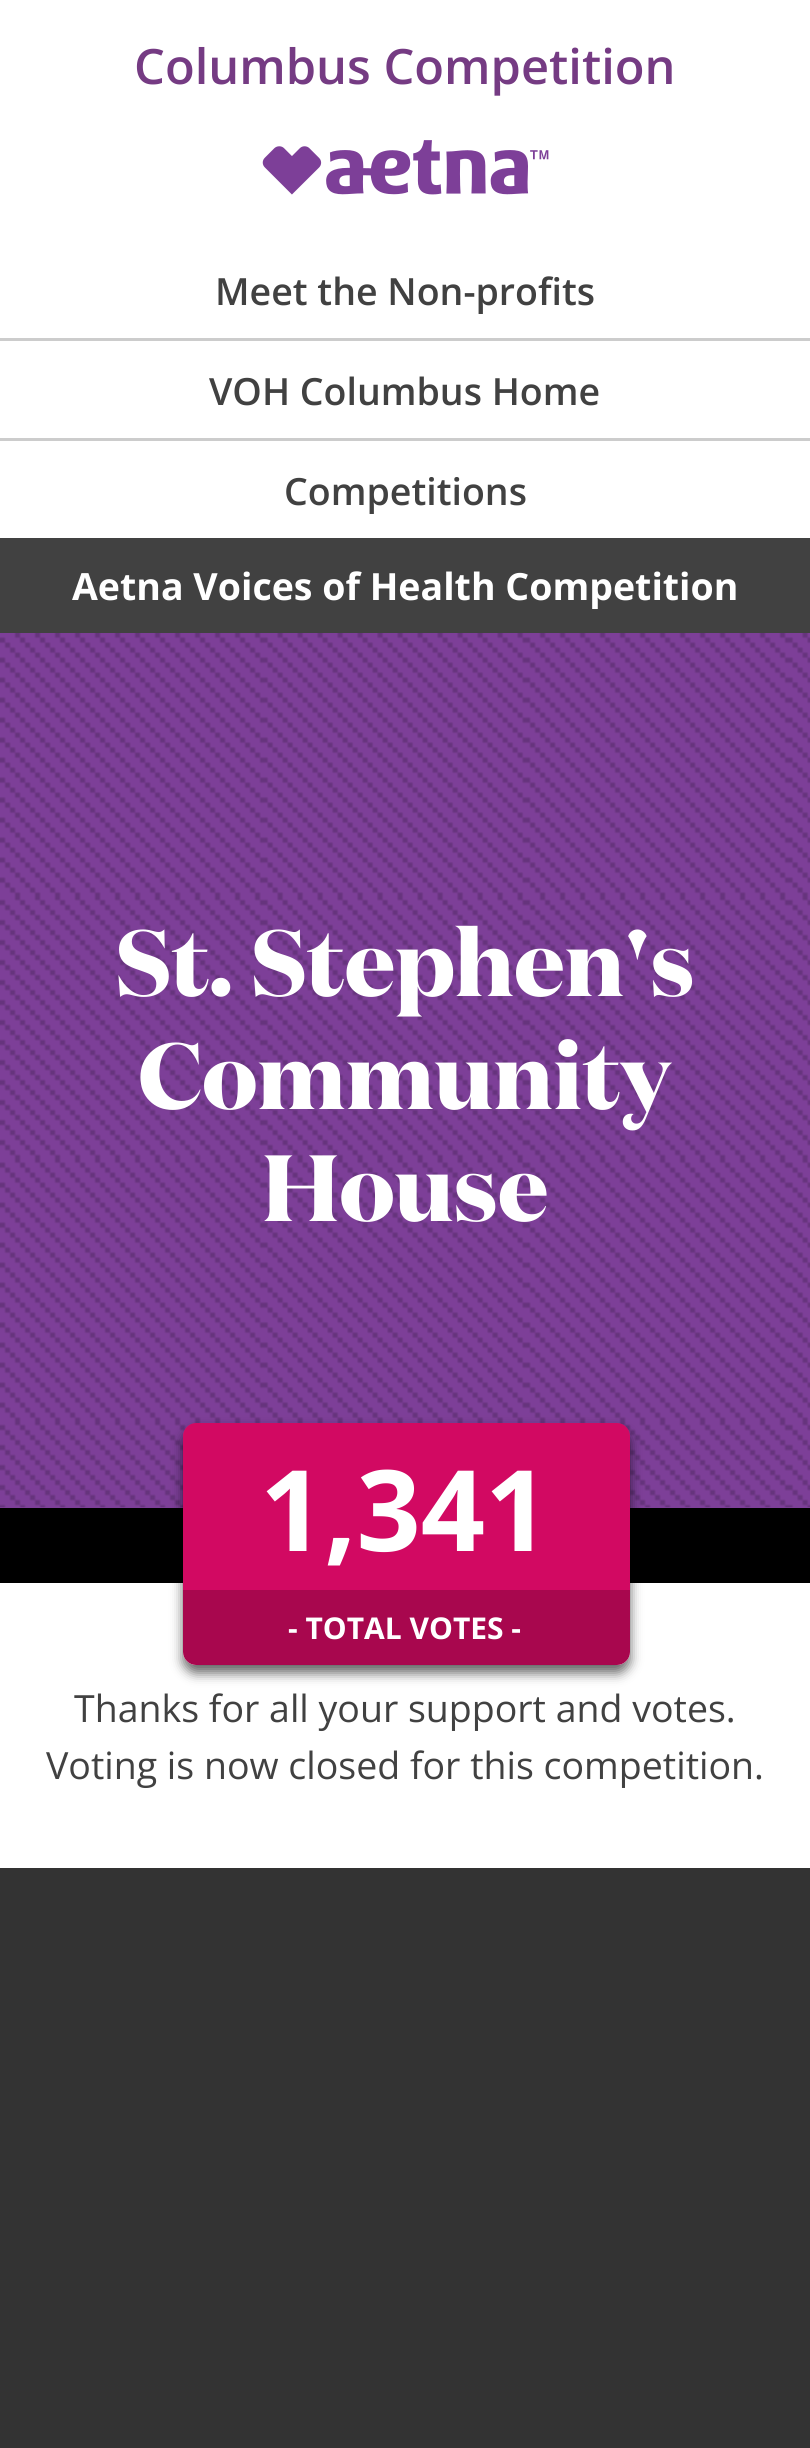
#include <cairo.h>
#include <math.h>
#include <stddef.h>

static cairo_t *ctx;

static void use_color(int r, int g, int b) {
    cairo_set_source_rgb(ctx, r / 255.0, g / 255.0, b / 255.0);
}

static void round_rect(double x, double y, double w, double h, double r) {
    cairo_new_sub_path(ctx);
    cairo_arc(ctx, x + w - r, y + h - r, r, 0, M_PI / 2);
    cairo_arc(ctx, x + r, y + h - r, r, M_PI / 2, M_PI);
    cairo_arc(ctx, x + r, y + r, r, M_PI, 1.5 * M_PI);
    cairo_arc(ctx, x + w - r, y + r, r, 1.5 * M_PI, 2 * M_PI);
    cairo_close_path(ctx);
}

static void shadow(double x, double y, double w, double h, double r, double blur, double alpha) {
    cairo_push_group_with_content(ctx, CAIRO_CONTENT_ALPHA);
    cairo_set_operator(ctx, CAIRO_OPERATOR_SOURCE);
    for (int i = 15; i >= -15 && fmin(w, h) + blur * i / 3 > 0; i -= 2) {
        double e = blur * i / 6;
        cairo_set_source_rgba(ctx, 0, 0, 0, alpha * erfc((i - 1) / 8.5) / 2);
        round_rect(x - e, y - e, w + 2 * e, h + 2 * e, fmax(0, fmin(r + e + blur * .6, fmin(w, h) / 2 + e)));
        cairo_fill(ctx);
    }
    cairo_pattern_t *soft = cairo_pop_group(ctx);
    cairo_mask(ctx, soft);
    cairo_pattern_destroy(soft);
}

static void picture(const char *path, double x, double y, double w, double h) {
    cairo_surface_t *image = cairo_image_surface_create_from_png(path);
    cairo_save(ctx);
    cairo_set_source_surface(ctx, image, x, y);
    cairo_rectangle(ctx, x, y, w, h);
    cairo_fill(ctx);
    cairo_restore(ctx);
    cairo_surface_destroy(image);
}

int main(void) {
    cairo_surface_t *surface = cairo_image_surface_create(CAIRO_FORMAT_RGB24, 810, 2448);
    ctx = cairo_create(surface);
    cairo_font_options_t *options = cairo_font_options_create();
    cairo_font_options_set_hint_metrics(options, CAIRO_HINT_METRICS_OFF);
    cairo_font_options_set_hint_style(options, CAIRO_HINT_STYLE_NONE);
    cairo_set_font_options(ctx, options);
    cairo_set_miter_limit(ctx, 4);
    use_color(255, 255, 255);
    cairo_paint(ctx);
    cairo_select_font_face(ctx, "Open Sans SemiBold", CAIRO_FONT_SLANT_NORMAL, CAIRO_FONT_WEIGHT_NORMAL);
    cairo_set_font_size(ctx, 48.75);
    use_color(117, 59, 131);
    cairo_move_to(ctx, 134, 84);
    cairo_show_text(ctx, "Columbus Competition");
    picture("img1.png", 262, 140, 287, 55);
    use_color(204, 204, 204);
    cairo_rectangle(ctx, 0, 338, 810, 3);
    cairo_fill(ctx);
    cairo_set_font_size(ctx, 37.5);
    use_color(65, 65, 65);
    cairo_move_to(ctx, 215, 305);
    cairo_show_text(ctx, "Meet the Non-profits");
    use_color(204, 204, 204);
    cairo_rectangle(ctx, 0, 438, 810, 3);
    cairo_fill(ctx);
    use_color(65, 65, 65);
    cairo_move_to(ctx, 209, 405);
    cairo_show_text(ctx, "VOH Columbus Home");
    cairo_move_to(ctx, 284, 505);
    cairo_show_text(ctx, "Competitions");
    cairo_rectangle(ctx, 0, 538, 810, 95);
    cairo_fill(ctx);
    cairo_select_font_face(ctx, "Open Sans", CAIRO_FONT_SLANT_NORMAL, CAIRO_FONT_WEIGHT_BOLD);
    use_color(255, 255, 255);
    cairo_move_to(ctx, 72, 600);
    cairo_show_text(ctx, "Aetna Voices of Health Competition");
    use_color(125, 63, 152);
    cairo_rectangle(ctx, 0, 633, 810, 875);
    cairo_fill(ctx);
    picture("img2.png", 0, 633, 810, 875);
    cairo_select_font_face(ctx, "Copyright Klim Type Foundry", CAIRO_FONT_SLANT_NORMAL, CAIRO_FONT_WEIGHT_BOLD);
    cairo_set_font_size(ctx, 93.75);
    use_color(255, 255, 255);
    cairo_move_to(ctx, 116, 996);
    cairo_show_text(ctx, "St. Stephen's");
    cairo_move_to(ctx, 138, 1109);
    cairo_show_text(ctx, "Community");
    cairo_move_to(ctx, 262, 1221);
    cairo_show_text(ctx, "House");
    use_color(0, 0, 0);
    cairo_rectangle(ctx, 0, 1508, 810, 75);
    cairo_fill(ctx);
    cairo_save(ctx);
    cairo_set_fill_rule(ctx, CAIRO_FILL_RULE_EVEN_ODD);
    cairo_new_path(ctx);
    cairo_move_to(ctx, 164, 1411);
    cairo_line_to(ctx, 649, 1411);
    cairo_line_to(ctx, 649, 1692);
    cairo_line_to(ctx, 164, 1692);
    cairo_close_path(ctx);
    cairo_move_to(ctx, 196, 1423);
    cairo_line_to(ctx, 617, 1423);
    cairo_curve_to(ctx, 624, 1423, 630, 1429, 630, 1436);
    cairo_line_to(ctx, 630, 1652);
    cairo_curve_to(ctx, 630, 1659, 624, 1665, 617, 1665);
    cairo_line_to(ctx, 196, 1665);
    cairo_curve_to(ctx, 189, 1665, 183, 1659, 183, 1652);
    cairo_line_to(ctx, 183, 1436);
    cairo_curve_to(ctx, 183, 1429, 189, 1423, 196, 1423);
    cairo_close_path(ctx);
    cairo_clip(ctx);
    use_color(0, 0, 0);
    shadow(183, 1430, 447, 243, 13, 6, 0.61);
    cairo_restore(ctx);
    use_color(210, 9, 98);
    cairo_new_path(ctx);
    cairo_move_to(ctx, 196, 1423);
    cairo_line_to(ctx, 617, 1423);
    cairo_curve_to(ctx, 624, 1423, 630, 1429, 630, 1436);
    cairo_line_to(ctx, 630, 1590);
    cairo_line_to(ctx, 183, 1590);
    cairo_line_to(ctx, 183, 1436);
    cairo_curve_to(ctx, 183, 1429, 189, 1423, 196, 1423);
    cairo_close_path(ctx);
    cairo_fill(ctx);
    cairo_select_font_face(ctx, "Open Sans", CAIRO_FONT_SLANT_NORMAL, CAIRO_FONT_WEIGHT_BOLD);
    cairo_set_font_size(ctx, 112.5);
    use_color(255, 255, 255);
    cairo_move_to(ctx, 260, 1551);
    cairo_show_text(ctx, "1,341");
    use_color(168, 7, 78);
    cairo_new_path(ctx);
    cairo_move_to(ctx, 183, 1590);
    cairo_line_to(ctx, 630, 1590);
    cairo_line_to(ctx, 630, 1652);
    cairo_curve_to(ctx, 630, 1659, 624, 1665, 617, 1665);
    cairo_line_to(ctx, 196, 1665);
    cairo_curve_to(ctx, 189, 1665, 183, 1659, 183, 1652);
    cairo_close_path(ctx);
    cairo_fill(ctx);
    cairo_set_font_size(ctx, 30);
    use_color(255, 255, 255);
    cairo_move_to(ctx, 288, 1639);
    cairo_show_text(ctx, "- TOTAL VOTES -");
    cairo_select_font_face(ctx, "Open Sans", CAIRO_FONT_SLANT_NORMAL, CAIRO_FONT_WEIGHT_NORMAL);
    cairo_set_font_size(ctx, 37.5);
    use_color(65, 65, 65);
    cairo_move_to(ctx, 74, 1722);
    cairo_show_text(ctx, "Thanks for all your support and votes.");
    cairo_move_to(ctx, 46, 1779);
    cairo_show_text(ctx, "Voting is now closed for this competition.");
    use_color(51, 51, 51);
    cairo_rectangle(ctx, 0, 1868, 810, 580);
    cairo_fill(ctx);
    cairo_surface_write_to_png(surface, "result.png");
    cairo_font_options_destroy(options);
    cairo_destroy(ctx);
    cairo_surface_destroy(surface);
    return 0;
}
